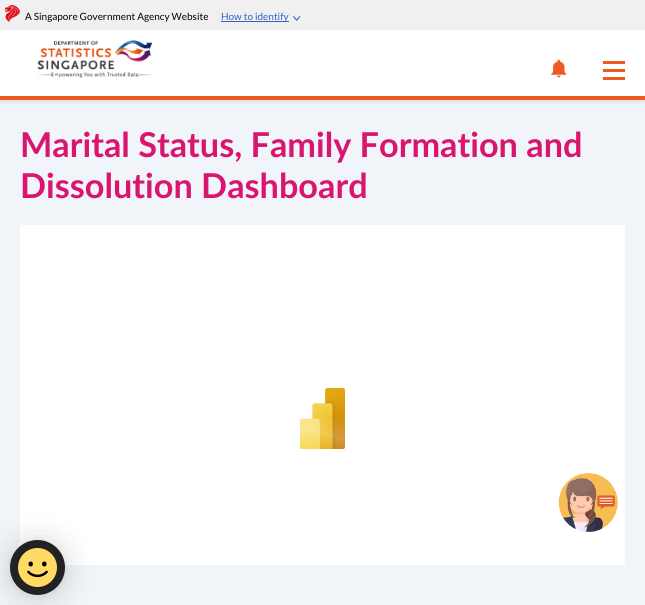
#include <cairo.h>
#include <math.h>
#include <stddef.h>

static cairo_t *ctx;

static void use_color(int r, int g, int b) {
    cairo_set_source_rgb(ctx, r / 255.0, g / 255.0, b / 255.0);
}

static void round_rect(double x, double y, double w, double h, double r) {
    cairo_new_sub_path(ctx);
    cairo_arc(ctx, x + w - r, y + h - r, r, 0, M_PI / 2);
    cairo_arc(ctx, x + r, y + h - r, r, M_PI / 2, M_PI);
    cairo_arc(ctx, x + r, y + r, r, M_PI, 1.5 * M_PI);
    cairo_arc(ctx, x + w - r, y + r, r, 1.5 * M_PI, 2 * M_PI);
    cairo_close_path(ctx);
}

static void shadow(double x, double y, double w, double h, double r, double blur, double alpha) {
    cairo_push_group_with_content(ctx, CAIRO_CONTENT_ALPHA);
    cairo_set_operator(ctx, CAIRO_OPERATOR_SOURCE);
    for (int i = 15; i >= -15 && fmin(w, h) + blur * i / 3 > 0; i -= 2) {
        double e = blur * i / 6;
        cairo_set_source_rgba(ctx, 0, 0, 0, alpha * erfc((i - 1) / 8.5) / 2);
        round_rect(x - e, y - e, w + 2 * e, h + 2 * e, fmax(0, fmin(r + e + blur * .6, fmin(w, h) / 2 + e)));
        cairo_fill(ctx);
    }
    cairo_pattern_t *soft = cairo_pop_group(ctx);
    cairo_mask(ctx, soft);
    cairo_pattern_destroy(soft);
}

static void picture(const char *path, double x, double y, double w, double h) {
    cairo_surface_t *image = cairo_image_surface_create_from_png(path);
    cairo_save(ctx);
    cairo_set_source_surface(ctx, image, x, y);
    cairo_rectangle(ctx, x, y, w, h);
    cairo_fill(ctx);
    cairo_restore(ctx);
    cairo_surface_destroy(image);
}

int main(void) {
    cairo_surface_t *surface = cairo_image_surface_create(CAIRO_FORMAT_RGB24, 645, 605);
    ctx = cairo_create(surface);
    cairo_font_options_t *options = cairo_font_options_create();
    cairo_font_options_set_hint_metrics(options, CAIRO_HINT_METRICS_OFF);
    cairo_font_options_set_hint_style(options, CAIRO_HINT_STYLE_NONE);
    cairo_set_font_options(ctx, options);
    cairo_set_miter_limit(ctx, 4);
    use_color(241, 245, 249);
    cairo_paint(ctx);
    use_color(0, 0, 0);
    shadow(0, 2, 645, 100, 0, 2, 0.1);
    use_color(255, 255, 255);
    cairo_rectangle(ctx, 0, 30, 645, 66);
    cairo_fill(ctx);
    use_color(237, 89, 33);
    cairo_rectangle(ctx, 0, 96, 645, 4);
    cairo_fill(ctx);
    use_color(240, 240, 240);
    cairo_rectangle(ctx, 0, 0, 645, 30);
    cairo_fill(ctx);
    picture("img1.png", 5, 5, 15, 17);
    cairo_select_font_face(ctx, "Lato", CAIRO_FONT_SLANT_NORMAL, CAIRO_FONT_WEIGHT_NORMAL);
    cairo_set_font_size(ctx, 10);
    use_color(0, 0, 0);
    cairo_move_to(ctx, 25, 20);
    cairo_show_text(ctx, "A Singapore Government Agency Website");
    use_color(47, 96, 206);
    cairo_rectangle(ctx, 221, 21, 68, 1);
    cairo_fill(ctx);
    cairo_move_to(ctx, 221, 20);
    cairo_show_text(ctx, "How to identify");
    picture("img2.png", 293, 16, 8, 5);
    picture("img3.png", 37, 40, 116, 38);
    picture("img4.png", 551, 59, 16, 19);
    use_color(237, 89, 33);
    cairo_rectangle(ctx, 603, 61, 22, 3);
    cairo_fill(ctx);
    cairo_rectangle(ctx, 603, 69, 22, 3);
    cairo_fill(ctx);
    cairo_rectangle(ctx, 603, 77, 22, 3);
    cairo_fill(ctx);
    cairo_select_font_face(ctx, "Lato", CAIRO_FONT_SLANT_NORMAL, CAIRO_FONT_WEIGHT_BOLD);
    cairo_set_font_size(ctx, 34.25);
    use_color(217, 21, 112);
    cairo_move_to(ctx, 20, 157);
    cairo_show_text(ctx, "Marital Status, Family Formation and");
    cairo_move_to(ctx, 20, 198);
    cairo_show_text(ctx, "Dissolution Dashboard");
    picture("img5.png", 20, 225, 605, 340);
    use_color(0, 0, 0);
    shadow(10, 542, 55, 55, 27.5, 16, 0.16);
    shadow(10, 541, 55, 55, 27.5, 3, 0.06);
    use_color(255, 219, 102);
    cairo_arc(ctx, 37.5, 567.5, 23.5, 0, 2 * M_PI);
    cairo_fill_preserve(ctx);
    use_color(34, 34, 34);
    cairo_set_line_width(ctx, 8);
    cairo_stroke(ctx);
    picture("img6.png", 27, 561, 21, 17);
    picture("img7.png", 558, 473, 60, 59);
    cairo_surface_write_to_png(surface, "result.png");
    cairo_font_options_destroy(options);
    cairo_destroy(ctx);
    cairo_surface_destroy(surface);
    return 0;
}
